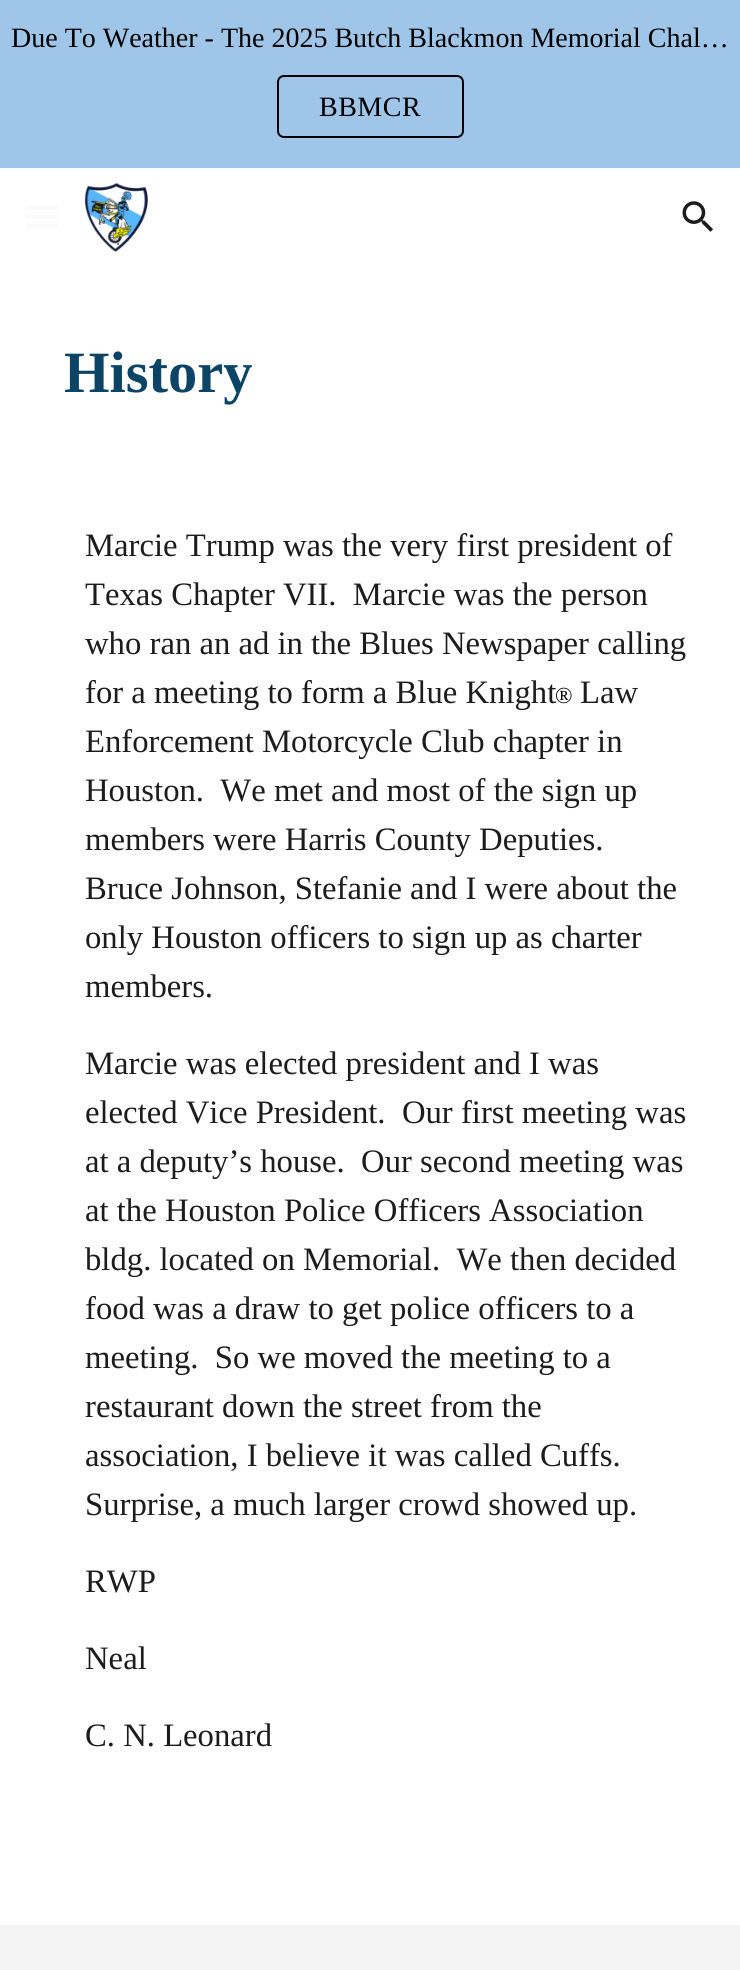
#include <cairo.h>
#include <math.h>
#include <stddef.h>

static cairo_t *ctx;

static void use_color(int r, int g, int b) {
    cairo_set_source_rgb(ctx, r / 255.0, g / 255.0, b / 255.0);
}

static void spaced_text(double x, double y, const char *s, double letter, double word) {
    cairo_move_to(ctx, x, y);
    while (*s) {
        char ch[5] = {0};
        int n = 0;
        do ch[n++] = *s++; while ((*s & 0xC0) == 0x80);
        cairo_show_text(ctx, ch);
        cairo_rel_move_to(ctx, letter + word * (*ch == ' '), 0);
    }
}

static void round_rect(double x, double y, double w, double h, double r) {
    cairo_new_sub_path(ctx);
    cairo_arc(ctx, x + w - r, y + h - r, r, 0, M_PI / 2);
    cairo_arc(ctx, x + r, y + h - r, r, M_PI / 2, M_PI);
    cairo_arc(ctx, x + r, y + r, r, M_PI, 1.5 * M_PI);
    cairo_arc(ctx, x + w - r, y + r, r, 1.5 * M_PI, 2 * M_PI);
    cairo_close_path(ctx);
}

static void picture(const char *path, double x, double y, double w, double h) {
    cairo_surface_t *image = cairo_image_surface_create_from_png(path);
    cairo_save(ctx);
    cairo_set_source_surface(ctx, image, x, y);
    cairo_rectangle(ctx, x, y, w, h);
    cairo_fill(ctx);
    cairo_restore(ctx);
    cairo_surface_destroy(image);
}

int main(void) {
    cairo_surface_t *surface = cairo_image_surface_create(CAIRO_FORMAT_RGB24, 740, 1970);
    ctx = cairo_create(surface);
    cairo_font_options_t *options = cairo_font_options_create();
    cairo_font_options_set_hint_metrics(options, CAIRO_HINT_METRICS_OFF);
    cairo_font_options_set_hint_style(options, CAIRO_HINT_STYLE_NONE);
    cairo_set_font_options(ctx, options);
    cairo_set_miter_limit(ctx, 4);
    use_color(255, 255, 255);
    cairo_paint(ctx);
    use_color(159, 197, 232);
    cairo_rectangle(ctx, 0, 0, 740, 168);
    cairo_fill(ctx);
    cairo_select_font_face(ctx, "Liberation Serif", CAIRO_FONT_SLANT_NORMAL, CAIRO_FONT_WEIGHT_NORMAL);
    cairo_set_font_size(ctx, 28);
    use_color(0, 0, 0);
    cairo_move_to(ctx, 11, 47);
    cairo_show_text(ctx, "Due To Weather - The 2025 Butch Blackmon Memorial Chal…");
    round_rect(278, 76, 185, 61, 6);
    cairo_stroke(ctx);
    spaced_text(319, 116, "BBMCR", 0.5, 0);
    use_color(250, 250, 250);
    cairo_rectangle(ctx, 26, 206, 32, 4);
    cairo_fill(ctx);
    cairo_rectangle(ctx, 26, 215, 32, 4);
    cairo_fill(ctx);
    cairo_rectangle(ctx, 26, 224, 32, 4);
    cairo_fill(ctx);
    picture("img1.png", 84, 182, 64, 70);
    picture("img2.png", 682, 201, 31, 31);
    cairo_select_font_face(ctx, "Liberation Serif", CAIRO_FONT_SLANT_NORMAL, CAIRO_FONT_WEIGHT_BOLD);
    cairo_set_font_size(ctx, 58.5);
    use_color(12, 68, 102);
    cairo_move_to(ctx, 64, 392);
    cairo_show_text(ctx, "History");
    cairo_select_font_face(ctx, "Liberation Serif", CAIRO_FONT_SLANT_NORMAL, CAIRO_FONT_WEIGHT_NORMAL);
    cairo_set_font_size(ctx, 32.7);
    use_color(28, 28, 28);
    cairo_move_to(ctx, 85, 556);
    cairo_show_text(ctx, "Marcie Trump was the very first president of");
    cairo_move_to(ctx, 85, 605);
    cairo_show_text(ctx, "Texas Chapter VII.  Marcie was the person");
    cairo_move_to(ctx, 85, 654);
    cairo_show_text(ctx, "who ran an ad in the Blues Newspaper calling");
    cairo_move_to(ctx, 85, 703);
    cairo_show_text(ctx, "for a meeting to form a Blue Knight");
    cairo_set_font_size(ctx, 23);
    use_color(0, 0, 0);
    cairo_move_to(ctx, 555, 703);
    cairo_show_text(ctx, "®");
    cairo_set_font_size(ctx, 32.7);
    use_color(28, 28, 28);
    cairo_move_to(ctx, 580, 703);
    cairo_show_text(ctx, "Law");
    cairo_move_to(ctx, 85, 752);
    cairo_show_text(ctx, "Enforcement Motorcycle Club chapter in");
    cairo_move_to(ctx, 85, 801);
    cairo_show_text(ctx, "Houston.  We met and most of the sign up");
    cairo_move_to(ctx, 85, 850);
    cairo_show_text(ctx, "members were Harris County Deputies.");
    cairo_move_to(ctx, 85, 899);
    cairo_show_text(ctx, "Bruce Johnson, Stefanie and I were about the");
    cairo_move_to(ctx, 85, 948);
    cairo_show_text(ctx, "only Houston officers to sign up as charter");
    cairo_move_to(ctx, 85, 997);
    cairo_show_text(ctx, "members.");
    cairo_move_to(ctx, 85, 1074);
    cairo_show_text(ctx, "Marcie was elected president and I was");
    cairo_move_to(ctx, 85, 1123);
    cairo_show_text(ctx, "elected Vice President.  Our first meeting was");
    cairo_move_to(ctx, 85, 1172);
    cairo_show_text(ctx, "at a deputy’s house.  Our second meeting was");
    cairo_move_to(ctx, 85, 1221);
    cairo_show_text(ctx, "at the Houston Police Officers Association");
    cairo_move_to(ctx, 85, 1270);
    cairo_show_text(ctx, "bldg. located on Memorial.  We then decided");
    cairo_move_to(ctx, 85, 1319);
    cairo_show_text(ctx, "food was a draw to get police officers to a");
    cairo_move_to(ctx, 85, 1368);
    cairo_show_text(ctx, "meeting.  So we moved the meeting to a");
    cairo_move_to(ctx, 85, 1417);
    cairo_show_text(ctx, "restaurant down the street from the");
    cairo_move_to(ctx, 85, 1466);
    cairo_show_text(ctx, "association, I believe it was called Cuffs.");
    cairo_move_to(ctx, 85, 1515);
    cairo_show_text(ctx, "Surprise, a much larger crowd showed up.");
    cairo_move_to(ctx, 85, 1592);
    cairo_show_text(ctx, "RWP");
    cairo_move_to(ctx, 85, 1669);
    cairo_show_text(ctx, "Neal");
    cairo_move_to(ctx, 85, 1746);
    cairo_show_text(ctx, "C. N. Leonard");
    use_color(243, 243, 243);
    cairo_rectangle(ctx, 0, 1925, 740, 45);
    cairo_fill(ctx);
    cairo_surface_write_to_png(surface, "result.png");
    cairo_font_options_destroy(options);
    cairo_destroy(ctx);
    cairo_surface_destroy(surface);
    return 0;
}
